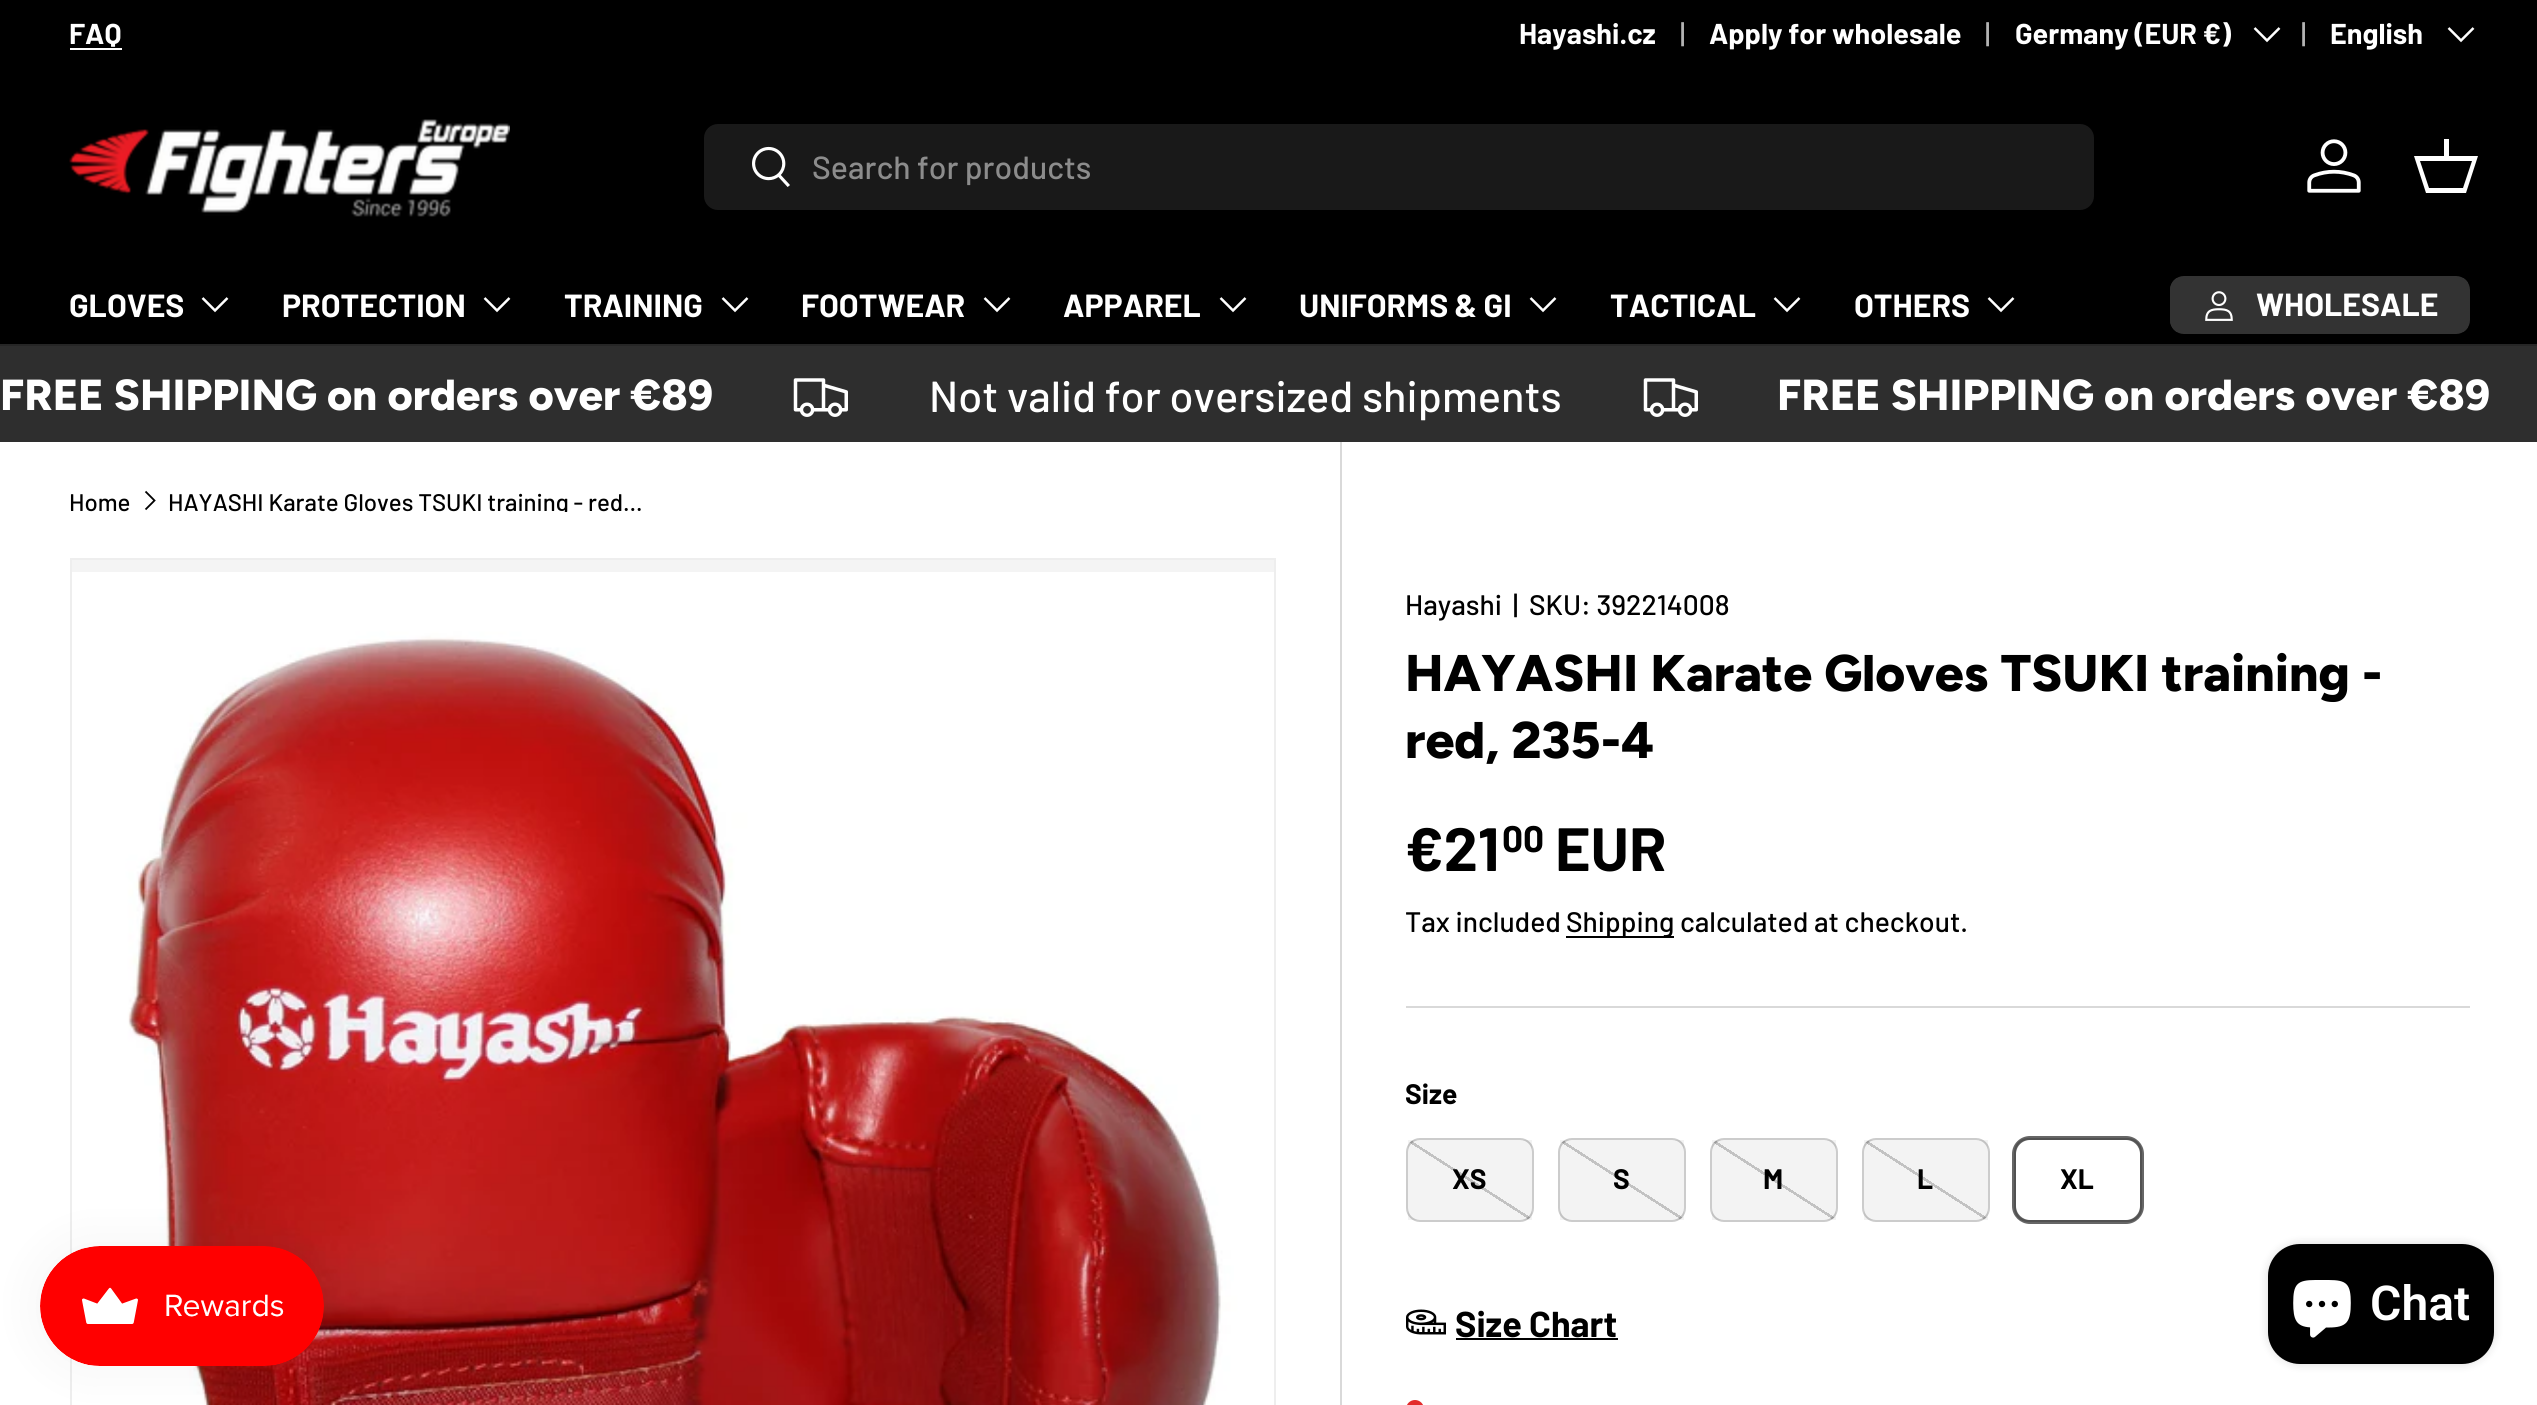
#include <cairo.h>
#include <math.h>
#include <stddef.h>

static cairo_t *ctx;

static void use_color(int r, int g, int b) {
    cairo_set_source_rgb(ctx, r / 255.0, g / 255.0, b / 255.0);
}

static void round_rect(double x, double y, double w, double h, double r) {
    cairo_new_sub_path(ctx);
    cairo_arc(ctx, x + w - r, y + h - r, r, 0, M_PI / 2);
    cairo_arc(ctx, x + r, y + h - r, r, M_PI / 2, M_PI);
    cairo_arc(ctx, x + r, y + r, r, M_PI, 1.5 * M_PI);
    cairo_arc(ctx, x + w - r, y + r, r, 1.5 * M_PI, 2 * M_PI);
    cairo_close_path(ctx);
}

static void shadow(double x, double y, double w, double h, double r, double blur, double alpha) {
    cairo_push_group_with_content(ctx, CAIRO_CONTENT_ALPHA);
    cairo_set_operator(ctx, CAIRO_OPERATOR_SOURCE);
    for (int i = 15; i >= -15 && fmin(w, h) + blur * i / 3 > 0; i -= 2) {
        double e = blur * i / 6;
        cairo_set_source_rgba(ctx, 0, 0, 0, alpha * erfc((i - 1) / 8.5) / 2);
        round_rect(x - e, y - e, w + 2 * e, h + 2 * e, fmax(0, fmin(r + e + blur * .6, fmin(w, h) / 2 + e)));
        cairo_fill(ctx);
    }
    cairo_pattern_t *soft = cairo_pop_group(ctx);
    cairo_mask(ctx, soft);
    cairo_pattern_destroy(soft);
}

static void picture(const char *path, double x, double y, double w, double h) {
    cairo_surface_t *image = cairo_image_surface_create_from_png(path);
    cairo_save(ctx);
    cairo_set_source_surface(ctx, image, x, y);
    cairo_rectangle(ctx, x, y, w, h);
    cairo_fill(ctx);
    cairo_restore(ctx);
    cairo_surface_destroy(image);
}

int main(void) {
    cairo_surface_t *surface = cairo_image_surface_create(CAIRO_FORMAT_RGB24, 2537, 1405);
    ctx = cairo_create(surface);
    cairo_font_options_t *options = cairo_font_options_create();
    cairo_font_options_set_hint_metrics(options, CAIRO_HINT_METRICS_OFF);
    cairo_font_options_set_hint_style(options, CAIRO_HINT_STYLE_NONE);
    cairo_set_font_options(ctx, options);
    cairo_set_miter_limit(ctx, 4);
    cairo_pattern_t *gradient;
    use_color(255, 255, 255);
    cairo_paint(ctx);
    use_color(0, 0, 0);
    cairo_rectangle(ctx, 0, 0, 2537, 344);
    cairo_fill(ctx);
    cairo_select_font_face(ctx, "Barlow", CAIRO_FONT_SLANT_NORMAL, CAIRO_FONT_WEIGHT_BOLD);
    cairo_set_font_size(ctx, 28.75);
    use_color(255, 255, 255);
    cairo_move_to(ctx, 69, 44);
    cairo_show_text(ctx, "FAQ");
    cairo_rectangle(ctx, 70, 48, 52, 2);
    cairo_fill(ctx);
    cairo_move_to(ctx, 1519, 44);
    cairo_show_text(ctx, "Hayashi.cz");
    cairo_select_font_face(ctx, "Barlow Medium", CAIRO_FONT_SLANT_NORMAL, CAIRO_FONT_WEIGHT_NORMAL);
    use_color(179, 179, 179);
    cairo_move_to(ctx, 1680, 44);
    cairo_show_text(ctx, "|");
    cairo_select_font_face(ctx, "Barlow", CAIRO_FONT_SLANT_NORMAL, CAIRO_FONT_WEIGHT_BOLD);
    use_color(255, 255, 255);
    cairo_move_to(ctx, 1709, 44);
    cairo_show_text(ctx, "Apply for wholesale");
    cairo_select_font_face(ctx, "Barlow Medium", CAIRO_FONT_SLANT_NORMAL, CAIRO_FONT_WEIGHT_NORMAL);
    use_color(179, 179, 179);
    cairo_move_to(ctx, 1985, 44);
    cairo_show_text(ctx, "|");
    cairo_select_font_face(ctx, "Barlow", CAIRO_FONT_SLANT_NORMAL, CAIRO_FONT_WEIGHT_BOLD);
    use_color(255, 255, 255);
    cairo_move_to(ctx, 2015, 44);
    cairo_show_text(ctx, "Germany (EUR €)");
    cairo_new_path(ctx);
    cairo_move_to(ctx, 2279.5, 28);
    cairo_line_to(ctx, 2267, 40.5);
    cairo_line_to(ctx, 2254.5, 28);
    cairo_set_line_width(ctx, 2.5);
    cairo_stroke(ctx);
    cairo_select_font_face(ctx, "Barlow Medium", CAIRO_FONT_SLANT_NORMAL, CAIRO_FONT_WEIGHT_NORMAL);
    use_color(179, 179, 179);
    cairo_move_to(ctx, 2301, 44);
    cairo_show_text(ctx, "|");
    cairo_select_font_face(ctx, "Barlow", CAIRO_FONT_SLANT_NORMAL, CAIRO_FONT_WEIGHT_BOLD);
    use_color(255, 255, 255);
    cairo_move_to(ctx, 2330, 44);
    cairo_show_text(ctx, "English");
    cairo_new_path(ctx);
    cairo_move_to(ctx, 2473.5, 28);
    cairo_line_to(ctx, 2461, 40.5);
    cairo_line_to(ctx, 2448.5, 28);
    cairo_stroke(ctx);
    use_color(38, 38, 38);
    cairo_rectangle(ctx, 0, 344, 2537, 2);
    cairo_fill(ctx);
    picture("img1.png", 69, 119, 441, 98);
    use_color(25, 25, 25);
    round_rect(704, 124, 1390, 86, 14);
    cairo_fill(ctx);
    picture("img2.png", 752, 146, 38, 41);
    cairo_select_font_face(ctx, "Barlow Medium", CAIRO_FONT_SLANT_NORMAL, CAIRO_FONT_WEIGHT_NORMAL);
    cairo_set_font_size(ctx, 32);
    use_color(140, 140, 140);
    cairo_move_to(ctx, 812, 179);
    cairo_show_text(ctx, "Search for products");
    picture("img3.png", 2307, 139, 54, 54);
    use_color(255, 255, 255);
    cairo_new_path(ctx);
    cairo_move_to(ctx, 2444, 156);
    cairo_line_to(ctx, 2444, 139);
    cairo_line_to(ctx, 2449, 139);
    cairo_line_to(ctx, 2449, 156);
    cairo_line_to(ctx, 2478, 156);
    cairo_line_to(ctx, 2466, 193);
    cairo_line_to(ctx, 2426, 193);
    cairo_line_to(ctx, 2414, 156);
    cairo_close_path(ctx);
    cairo_move_to(ctx, 2420, 161);
    cairo_line_to(ctx, 2429, 188);
    cairo_line_to(ctx, 2463, 188);
    cairo_line_to(ctx, 2472, 161);
    cairo_close_path(ctx);
    cairo_fill(ctx);
    cairo_select_font_face(ctx, "Barlow", CAIRO_FONT_SLANT_NORMAL, CAIRO_FONT_WEIGHT_BOLD);
    cairo_move_to(ctx, 69, 317);
    cairo_show_text(ctx, "GLOVES");
    cairo_new_path(ctx);
    cairo_move_to(ctx, 227.5, 298);
    cairo_line_to(ctx, 215, 310.5);
    cairo_line_to(ctx, 202.5, 298);
    cairo_stroke(ctx);
    cairo_move_to(ctx, 282, 317);
    cairo_show_text(ctx, "PROTECTION");
    cairo_new_path(ctx);
    cairo_move_to(ctx, 509.5, 298);
    cairo_line_to(ctx, 497, 310.5);
    cairo_line_to(ctx, 484.5, 298);
    cairo_stroke(ctx);
    cairo_move_to(ctx, 564, 317);
    cairo_show_text(ctx, "TRAINING");
    cairo_new_path(ctx);
    cairo_move_to(ctx, 747.5, 298);
    cairo_line_to(ctx, 735, 310.5);
    cairo_line_to(ctx, 722.5, 298);
    cairo_stroke(ctx);
    cairo_move_to(ctx, 801, 317);
    cairo_show_text(ctx, "FOOTWEAR");
    cairo_new_path(ctx);
    cairo_move_to(ctx, 1009.5, 298);
    cairo_line_to(ctx, 997, 310.5);
    cairo_line_to(ctx, 984.5, 298);
    cairo_stroke(ctx);
    cairo_move_to(ctx, 1063, 317);
    cairo_show_text(ctx, "APPAREL");
    cairo_new_path(ctx);
    cairo_move_to(ctx, 1245.5, 298);
    cairo_line_to(ctx, 1233, 310.5);
    cairo_line_to(ctx, 1220.5, 298);
    cairo_stroke(ctx);
    cairo_move_to(ctx, 1299, 317);
    cairo_show_text(ctx, "UNIFORMS & GI");
    cairo_new_path(ctx);
    cairo_move_to(ctx, 1555.5, 298);
    cairo_line_to(ctx, 1543, 310.5);
    cairo_line_to(ctx, 1530.5, 298);
    cairo_stroke(ctx);
    cairo_move_to(ctx, 1610, 317);
    cairo_show_text(ctx, "TACTICAL");
    cairo_new_path(ctx);
    cairo_move_to(ctx, 1799.5, 298);
    cairo_line_to(ctx, 1787, 310.5);
    cairo_line_to(ctx, 1774.5, 298);
    cairo_stroke(ctx);
    cairo_move_to(ctx, 1854, 317);
    cairo_show_text(ctx, "OTHERS");
    cairo_new_path(ctx);
    cairo_move_to(ctx, 2013.5, 298);
    cairo_line_to(ctx, 2001, 310.5);
    cairo_line_to(ctx, 1988.5, 298);
    cairo_stroke(ctx);
    cairo_save(ctx);
    round_rect(2170, 276, 300, 58, 14);
    cairo_clip(ctx);
    gradient = cairo_pattern_create_linear(1600, 199, 2448, 411);
    cairo_pattern_add_color_stop_rgba(gradient, 0.6, 0.353, 0.353, 0.353, 1);
    cairo_pattern_add_color_stop_rgba(gradient, 0.6, 0.2, 0.2, 0.2, 1);
    cairo_pattern_add_color_stop_rgba(gradient, 1, 0.2, 0.2, 0.2, 1);
    cairo_set_source(ctx, gradient);
    cairo_pattern_destroy(gradient);
    cairo_rectangle(ctx, 2170, 278, 298, 54);
    cairo_fill(ctx);
    cairo_restore(ctx);
    round_rect(2171, 277, 298, 56, 13);
    use_color(51, 51, 51);
    cairo_set_line_width(ctx, 2);
    cairo_stroke(ctx);
    picture("img4.png", 2205, 291, 28, 30);
    use_color(255, 255, 255);
    cairo_move_to(ctx, 2256, 316);
    cairo_show_text(ctx, "WHOLESALE");
    use_color(46, 46, 46);
    cairo_rectangle(ctx, 0, 346, 2537, 96);
    cairo_fill(ctx);
    cairo_select_font_face(ctx, "Figtree ExtraBold", CAIRO_FONT_SLANT_NORMAL, CAIRO_FONT_WEIGHT_NORMAL);
    cairo_set_font_size(ctx, 43.4);
    use_color(255, 255, 255);
    cairo_move_to(ctx, 0, 410);
    cairo_show_text(ctx, "FREE SHIPPING on orders over €89");
    picture("img5.png", 793, 378, 55, 39);
    cairo_select_font_face(ctx, "Barlow Medium", CAIRO_FONT_SLANT_NORMAL, CAIRO_FONT_WEIGHT_NORMAL);
    cairo_move_to(ctx, 929, 412);
    cairo_show_text(ctx, "Not valid for oversized shipments");
    picture("img5.png", 1643, 378, 55, 39);
    cairo_select_font_face(ctx, "Figtree ExtraBold", CAIRO_FONT_SLANT_NORMAL, CAIRO_FONT_WEIGHT_NORMAL);
    cairo_move_to(ctx, 1777, 410);
    cairo_show_text(ctx, "FREE SHIPPING on orders over €89");
    cairo_select_font_face(ctx, "Barlow Medium", CAIRO_FONT_SLANT_NORMAL, CAIRO_FONT_WEIGHT_NORMAL);
    cairo_set_font_size(ctx, 24);
    use_color(0, 0, 0);
    cairo_move_to(ctx, 69, 511);
    cairo_show_text(ctx, "Home");
    cairo_new_path(ctx);
    cairo_move_to(ctx, 145.5, 491.5);
    cairo_line_to(ctx, 154.5, 500.5);
    cairo_line_to(ctx, 145.5, 509.5);
    cairo_set_line_width(ctx, 1.8);
    cairo_stroke(ctx);
    cairo_save(ctx);
    cairo_rectangle(ctx, 168, 488, 480, 24);
    cairo_clip(ctx);
    cairo_move_to(ctx, 168, 511);
    cairo_show_text(ctx, "HAYASHI Karate Gloves TSUKI training - red…");
    cairo_restore(ctx);
    use_color(244, 244, 244);
    cairo_rectangle(ctx, 72, 560, 1202, 12);
    cairo_fill(ctx);
    cairo_rectangle(ctx, 71, 559, 1204, 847);
    use_color(238, 238, 238);
    cairo_set_line_width(ctx, 2);
    cairo_stroke(ctx);
    picture("img6.png", 72, 572, 1202, 833);
    use_color(217, 217, 217);
    cairo_rectangle(ctx, 1340, 442, 2, 963);
    cairo_fill(ctx);
    cairo_set_font_size(ctx, 28.2);
    use_color(0, 0, 0);
    cairo_move_to(ctx, 1405, 615);
    cairo_show_text(ctx, "Hayashi");
    cairo_move_to(ctx, 1513, 615);
    cairo_show_text(ctx, "|");
    cairo_move_to(ctx, 1529, 615);
    cairo_show_text(ctx, "SKU: 392214008");
    cairo_select_font_face(ctx, "Figtree ExtraBold", CAIRO_FONT_SLANT_NORMAL, CAIRO_FONT_WEIGHT_NORMAL);
    cairo_set_font_size(ctx, 51.5);
    cairo_move_to(ctx, 1405, 691);
    cairo_show_text(ctx, "HAYASHI Karate Gloves TSUKI training -");
    cairo_move_to(ctx, 1405, 758);
    cairo_show_text(ctx, "red, 235-4");
    cairo_select_font_face(ctx, "Barlow", CAIRO_FONT_SLANT_NORMAL, CAIRO_FONT_WEIGHT_BOLD);
    cairo_set_font_size(ctx, 61);
    cairo_move_to(ctx, 1405, 871);
    cairo_show_text(ctx, "€21");
    cairo_set_font_size(ctx, 37);
    cairo_move_to(ctx, 1502, 852);
    cairo_show_text(ctx, "00");
    cairo_set_font_size(ctx, 61);
    cairo_move_to(ctx, 1555, 871);
    cairo_show_text(ctx, "EUR");
    cairo_select_font_face(ctx, "Barlow Medium", CAIRO_FONT_SLANT_NORMAL, CAIRO_FONT_WEIGHT_NORMAL);
    cairo_set_font_size(ctx, 28.2);
    cairo_move_to(ctx, 1405, 932);
    cairo_show_text(ctx, "Tax included");
    cairo_rectangle(ctx, 1566, 936, 108, 2);
    cairo_fill(ctx);
    cairo_move_to(ctx, 1566, 932);
    cairo_show_text(ctx, "Shipping calculated at checkout.");
    use_color(217, 217, 217);
    cairo_rectangle(ctx, 1406, 1006, 1064, 2);
    cairo_fill(ctx);
    cairo_select_font_face(ctx, "Barlow", CAIRO_FONT_SLANT_NORMAL, CAIRO_FONT_WEIGHT_BOLD);
    use_color(0, 0, 0);
    cairo_move_to(ctx, 1405, 1104);
    cairo_show_text(ctx, "Size");
    cairo_save(ctx);
    round_rect(1406, 1138, 128, 84, 14);
    cairo_clip(ctx);
    gradient = cairo_pattern_create_linear(1506, 1124, 1434, 1236);
    cairo_pattern_add_color_stop_rgba(gradient, 0.49, 1, 1, 1, 1);
    cairo_pattern_add_color_stop_rgba(gradient, 0.49, 0.8, 0.8, 0.8, 1);
    cairo_pattern_add_color_stop_rgba(gradient, 0.51, 0.8, 0.8, 0.8, 1);
    cairo_pattern_add_color_stop_rgba(gradient, 0.51, 1, 1, 1, 1);
    cairo_set_source(ctx, gradient);
    cairo_pattern_destroy(gradient);
    cairo_rectangle(ctx, 1408, 1140, 124, 80);
    cairo_fill(ctx);
    cairo_restore(ctx);
    round_rect(1407, 1139, 126, 82, 13);
    cairo_set_source_rgba(ctx, 0, 0, 0, 0.2);
    cairo_stroke(ctx);
    cairo_set_source_rgba(ctx, 0, 0, 0, 0.05);
    cairo_rectangle(ctx, 1408, 1140, 124, 80);
    cairo_fill(ctx);
    use_color(0, 0, 0);
    cairo_move_to(ctx, 1452, 1189);
    cairo_show_text(ctx, "XS");
    cairo_save(ctx);
    round_rect(1558, 1138, 128, 84, 14);
    cairo_clip(ctx);
    gradient = cairo_pattern_create_linear(1658, 1124, 1586, 1236);
    cairo_pattern_add_color_stop_rgba(gradient, 0.49, 1, 1, 1, 1);
    cairo_pattern_add_color_stop_rgba(gradient, 0.49, 0.8, 0.8, 0.8, 1);
    cairo_pattern_add_color_stop_rgba(gradient, 0.51, 0.8, 0.8, 0.8, 1);
    cairo_pattern_add_color_stop_rgba(gradient, 0.51, 1, 1, 1, 1);
    cairo_set_source(ctx, gradient);
    cairo_pattern_destroy(gradient);
    cairo_rectangle(ctx, 1560, 1140, 124, 80);
    cairo_fill(ctx);
    cairo_restore(ctx);
    round_rect(1559, 1139, 126, 82, 13);
    cairo_set_source_rgba(ctx, 0, 0, 0, 0.2);
    cairo_stroke(ctx);
    cairo_set_source_rgba(ctx, 0, 0, 0, 0.05);
    cairo_rectangle(ctx, 1560, 1140, 124, 80);
    cairo_fill(ctx);
    use_color(0, 0, 0);
    cairo_move_to(ctx, 1613, 1189);
    cairo_show_text(ctx, "S");
    cairo_save(ctx);
    round_rect(1710, 1138, 128, 84, 14);
    cairo_clip(ctx);
    gradient = cairo_pattern_create_linear(1810, 1124, 1738, 1236);
    cairo_pattern_add_color_stop_rgba(gradient, 0.49, 1, 1, 1, 1);
    cairo_pattern_add_color_stop_rgba(gradient, 0.49, 0.8, 0.8, 0.8, 1);
    cairo_pattern_add_color_stop_rgba(gradient, 0.51, 0.8, 0.8, 0.8, 1);
    cairo_pattern_add_color_stop_rgba(gradient, 0.51, 1, 1, 1, 1);
    cairo_set_source(ctx, gradient);
    cairo_pattern_destroy(gradient);
    cairo_rectangle(ctx, 1712, 1140, 124, 80);
    cairo_fill(ctx);
    cairo_restore(ctx);
    round_rect(1711, 1139, 126, 82, 13);
    cairo_set_source_rgba(ctx, 0, 0, 0, 0.2);
    cairo_stroke(ctx);
    cairo_set_source_rgba(ctx, 0, 0, 0, 0.05);
    cairo_rectangle(ctx, 1712, 1140, 124, 80);
    cairo_fill(ctx);
    use_color(0, 0, 0);
    cairo_move_to(ctx, 1763, 1189);
    cairo_show_text(ctx, "M");
    cairo_save(ctx);
    round_rect(1862, 1138, 128, 84, 14);
    cairo_clip(ctx);
    gradient = cairo_pattern_create_linear(1962, 1124, 1890, 1236);
    cairo_pattern_add_color_stop_rgba(gradient, 0.49, 1, 1, 1, 1);
    cairo_pattern_add_color_stop_rgba(gradient, 0.49, 0.8, 0.8, 0.8, 1);
    cairo_pattern_add_color_stop_rgba(gradient, 0.51, 0.8, 0.8, 0.8, 1);
    cairo_pattern_add_color_stop_rgba(gradient, 0.51, 1, 1, 1, 1);
    cairo_set_source(ctx, gradient);
    cairo_pattern_destroy(gradient);
    cairo_rectangle(ctx, 1864, 1140, 124, 80);
    cairo_fill(ctx);
    cairo_restore(ctx);
    round_rect(1863, 1139, 126, 82, 13);
    cairo_set_source_rgba(ctx, 0, 0, 0, 0.2);
    cairo_stroke(ctx);
    cairo_set_source_rgba(ctx, 0, 0, 0, 0.05);
    cairo_rectangle(ctx, 1864, 1140, 124, 80);
    cairo_fill(ctx);
    use_color(0, 0, 0);
    cairo_move_to(ctx, 1917, 1189);
    cairo_show_text(ctx, "L");
    round_rect(2015, 1139, 126, 82, 13);
    use_color(204, 204, 204);
    cairo_stroke(ctx);
    round_rect(2014, 1138, 128, 84, 16);
    cairo_set_source_rgba(ctx, 0, 0, 0, 0.6);
    cairo_set_line_width(ctx, 4);
    cairo_stroke(ctx);
    use_color(0, 0, 0);
    cairo_move_to(ctx, 2060, 1189);
    cairo_show_text(ctx, "XL");
    picture("img7.png", 1406, 1309, 40, 26);
    cairo_set_font_size(ctx, 36);
    cairo_move_to(ctx, 1455, 1337);
    cairo_show_text(ctx, "Size Chart");
    cairo_rectangle(ctx, 1456, 1338, 162, 2);
    cairo_fill(ctx);
    use_color(227, 43, 43);
    round_rect(1406, 1400, 18, 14, 9);
    cairo_fill(ctx);
    use_color(0, 0, 0);
    shadow(40, 1246, 284, 120, 60, 25, 0.05);
    picture("img8.png", 40, 1246, 284, 120);
    shadow(2268, 1244, 226, 120, 32, 5, 0.15);
    use_color(0, 0, 0);
    round_rect(2268, 1244, 226, 120, 32);
    cairo_fill(ctx);
    picture("img9.png", 2293, 1280, 58, 58);
    cairo_select_font_face(ctx, "Roboto SemiBold", CAIRO_FONT_SLANT_NORMAL, CAIRO_FONT_WEIGHT_NORMAL);
    cairo_set_font_size(ctx, 48);
    use_color(255, 255, 255);
    cairo_move_to(ctx, 2370, 1320);
    cairo_show_text(ctx, "Chat");
    cairo_surface_write_to_png(surface, "result.png");
    cairo_font_options_destroy(options);
    cairo_destroy(ctx);
    cairo_surface_destroy(surface);
    return 0;
}
